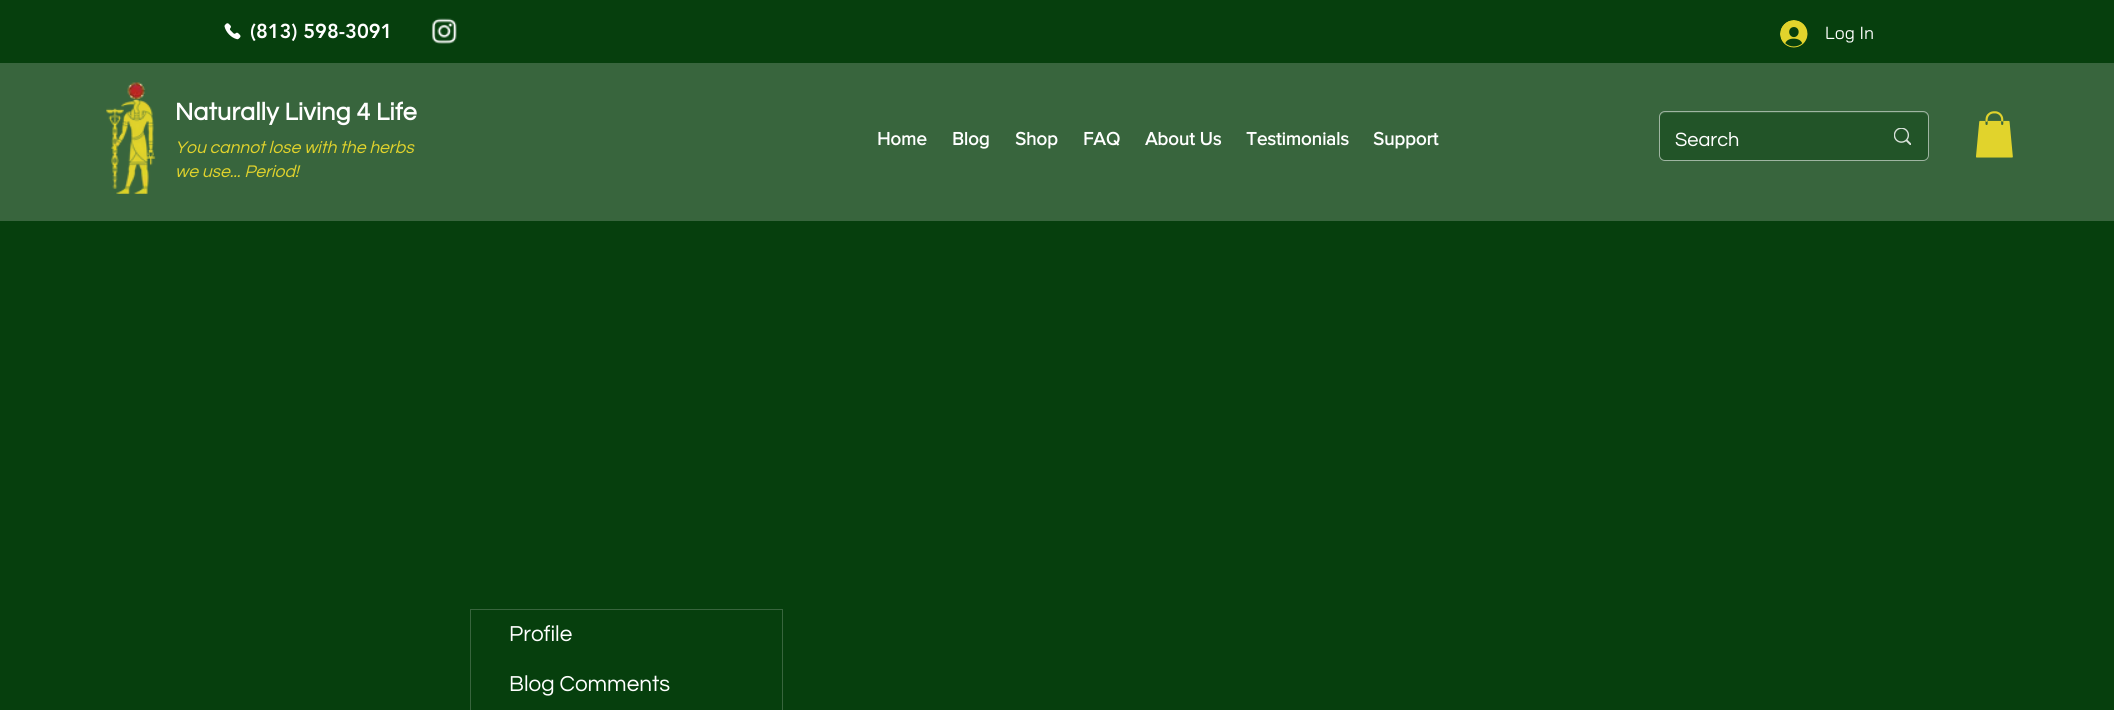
#include <cairo.h>
#include <math.h>
#include <stddef.h>

static cairo_t *ctx;

static void use_color(int r, int g, int b) {
    cairo_set_source_rgb(ctx, r / 255.0, g / 255.0, b / 255.0);
}

static void spaced_text(double x, double y, const char *s, double letter, double word) {
    cairo_move_to(ctx, x, y);
    while (*s) {
        char ch[5] = {0};
        int n = 0;
        do ch[n++] = *s++; while ((*s & 0xC0) == 0x80);
        cairo_show_text(ctx, ch);
        cairo_rel_move_to(ctx, letter + word * (*ch == ' '), 0);
    }
}

static void round_rect(double x, double y, double w, double h, double r) {
    cairo_new_sub_path(ctx);
    cairo_arc(ctx, x + w - r, y + h - r, r, 0, M_PI / 2);
    cairo_arc(ctx, x + r, y + h - r, r, M_PI / 2, M_PI);
    cairo_arc(ctx, x + r, y + r, r, M_PI, 1.5 * M_PI);
    cairo_arc(ctx, x + w - r, y + r, r, 1.5 * M_PI, 2 * M_PI);
    cairo_close_path(ctx);
}

static void picture(const char *path, double x, double y, double w, double h) {
    cairo_surface_t *image = cairo_image_surface_create_from_png(path);
    cairo_save(ctx);
    cairo_set_source_surface(ctx, image, x, y);
    cairo_rectangle(ctx, x, y, w, h);
    cairo_fill(ctx);
    cairo_restore(ctx);
    cairo_surface_destroy(image);
}

int main(void) {
    cairo_surface_t *surface = cairo_image_surface_create(CAIRO_FORMAT_RGB24, 2114, 710);
    ctx = cairo_create(surface);
    cairo_font_options_t *options = cairo_font_options_create();
    cairo_font_options_set_hint_metrics(options, CAIRO_HINT_METRICS_OFF);
    cairo_font_options_set_hint_style(options, CAIRO_HINT_STYLE_NONE);
    cairo_set_font_options(ctx, options);
    cairo_set_miter_limit(ctx, 4);
    use_color(6, 63, 13);
    cairo_paint(ctx);
    picture("img1.png", 224, 23, 17, 17);
    cairo_select_font_face(ctx, "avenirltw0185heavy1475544 Black", CAIRO_FONT_SLANT_NORMAL, CAIRO_FONT_WEIGHT_NORMAL);
    cairo_set_font_size(ctx, 20);
    use_color(255, 255, 255);
    cairo_move_to(ctx, 250, 38);
    cairo_show_text(ctx, "(813) 598-3091");
    picture("img2.png", 431, 18, 26, 26);
    picture("img3.png", 1780, 20, 28, 28);
    cairo_select_font_face(ctx, "Bai Jamjuree", CAIRO_FONT_SLANT_NORMAL, CAIRO_FONT_WEIGHT_NORMAL);
    cairo_set_font_size(ctx, 17.5);
    cairo_move_to(ctx, 1825, 39);
    cairo_show_text(ctx, "Log In");
    use_color(56, 101, 61);
    cairo_rectangle(ctx, 0, 63, 2114, 158);
    cairo_fill(ctx);
    picture("img4.png", 106, 82, 50, 112);
    cairo_select_font_face(ctx, "Questrial", CAIRO_FONT_SLANT_NORMAL, CAIRO_FONT_WEIGHT_BOLD);
    cairo_set_font_size(ctx, 25);
    use_color(255, 255, 255);
    spaced_text(175, 120, "Naturally Living 4 Life", 0.25, 0);
    cairo_select_font_face(ctx, "Questrial", CAIRO_FONT_SLANT_ITALIC, CAIRO_FONT_WEIGHT_NORMAL);
    cairo_set_font_size(ctx, 17.5);
    use_color(225, 211, 44);
    cairo_move_to(ctx, 175, 153);
    cairo_show_text(ctx, "You cannot lose with the herbs");
    cairo_move_to(ctx, 175, 177);
    cairo_show_text(ctx, "we use... Period!");
    cairo_select_font_face(ctx, "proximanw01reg", CAIRO_FONT_SLANT_NORMAL, CAIRO_FONT_WEIGHT_BOLD);
    cairo_set_font_size(ctx, 18.75);
    use_color(255, 255, 255);
    cairo_move_to(ctx, 877, 145);
    cairo_show_text(ctx, "Home");
    cairo_move_to(ctx, 952, 145);
    cairo_show_text(ctx, "Blog");
    cairo_move_to(ctx, 1015, 145);
    cairo_show_text(ctx, "Shop");
    cairo_move_to(ctx, 1083, 145);
    cairo_show_text(ctx, "FAQ");
    cairo_move_to(ctx, 1145, 145);
    cairo_show_text(ctx, "About Us");
    cairo_move_to(ctx, 1246, 145);
    cairo_show_text(ctx, "Testimonials");
    cairo_move_to(ctx, 1373, 145);
    cairo_show_text(ctx, "Support");
    round_rect(1659.5, 111.5, 269, 49, 5.5);
    use_color(159, 181, 162);
    cairo_set_line_width(ctx, 1);
    cairo_stroke(ctx);
    cairo_set_source_rgba(ctx, 0.024, 0.247, 0.051, 0.43);
    round_rect(1660, 113, 268, 47, 5);
    cairo_fill(ctx);
    cairo_select_font_face(ctx, "Questrial", CAIRO_FONT_SLANT_NORMAL, CAIRO_FONT_WEIGHT_NORMAL);
    cairo_set_font_size(ctx, 20);
    use_color(255, 255, 255);
    cairo_move_to(ctx, 1675, 146);
    cairo_show_text(ctx, "Search");
    picture("img5.png", 1894, 128, 17, 17);
    picture("img6.png", 1976, 111, 37, 47);
    cairo_rectangle(ctx, 470.5, 609.5, 312, 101);
    use_color(56, 101, 61);
    cairo_stroke(ctx);
    cairo_set_font_size(ctx, 22.5);
    use_color(255, 255, 255);
    cairo_move_to(ctx, 509, 641);
    cairo_show_text(ctx, "Profile");
    cairo_move_to(ctx, 509, 691);
    cairo_show_text(ctx, "Blog Comments");
    cairo_surface_write_to_png(surface, "result.png");
    cairo_font_options_destroy(options);
    cairo_destroy(ctx);
    cairo_surface_destroy(surface);
    return 0;
}
